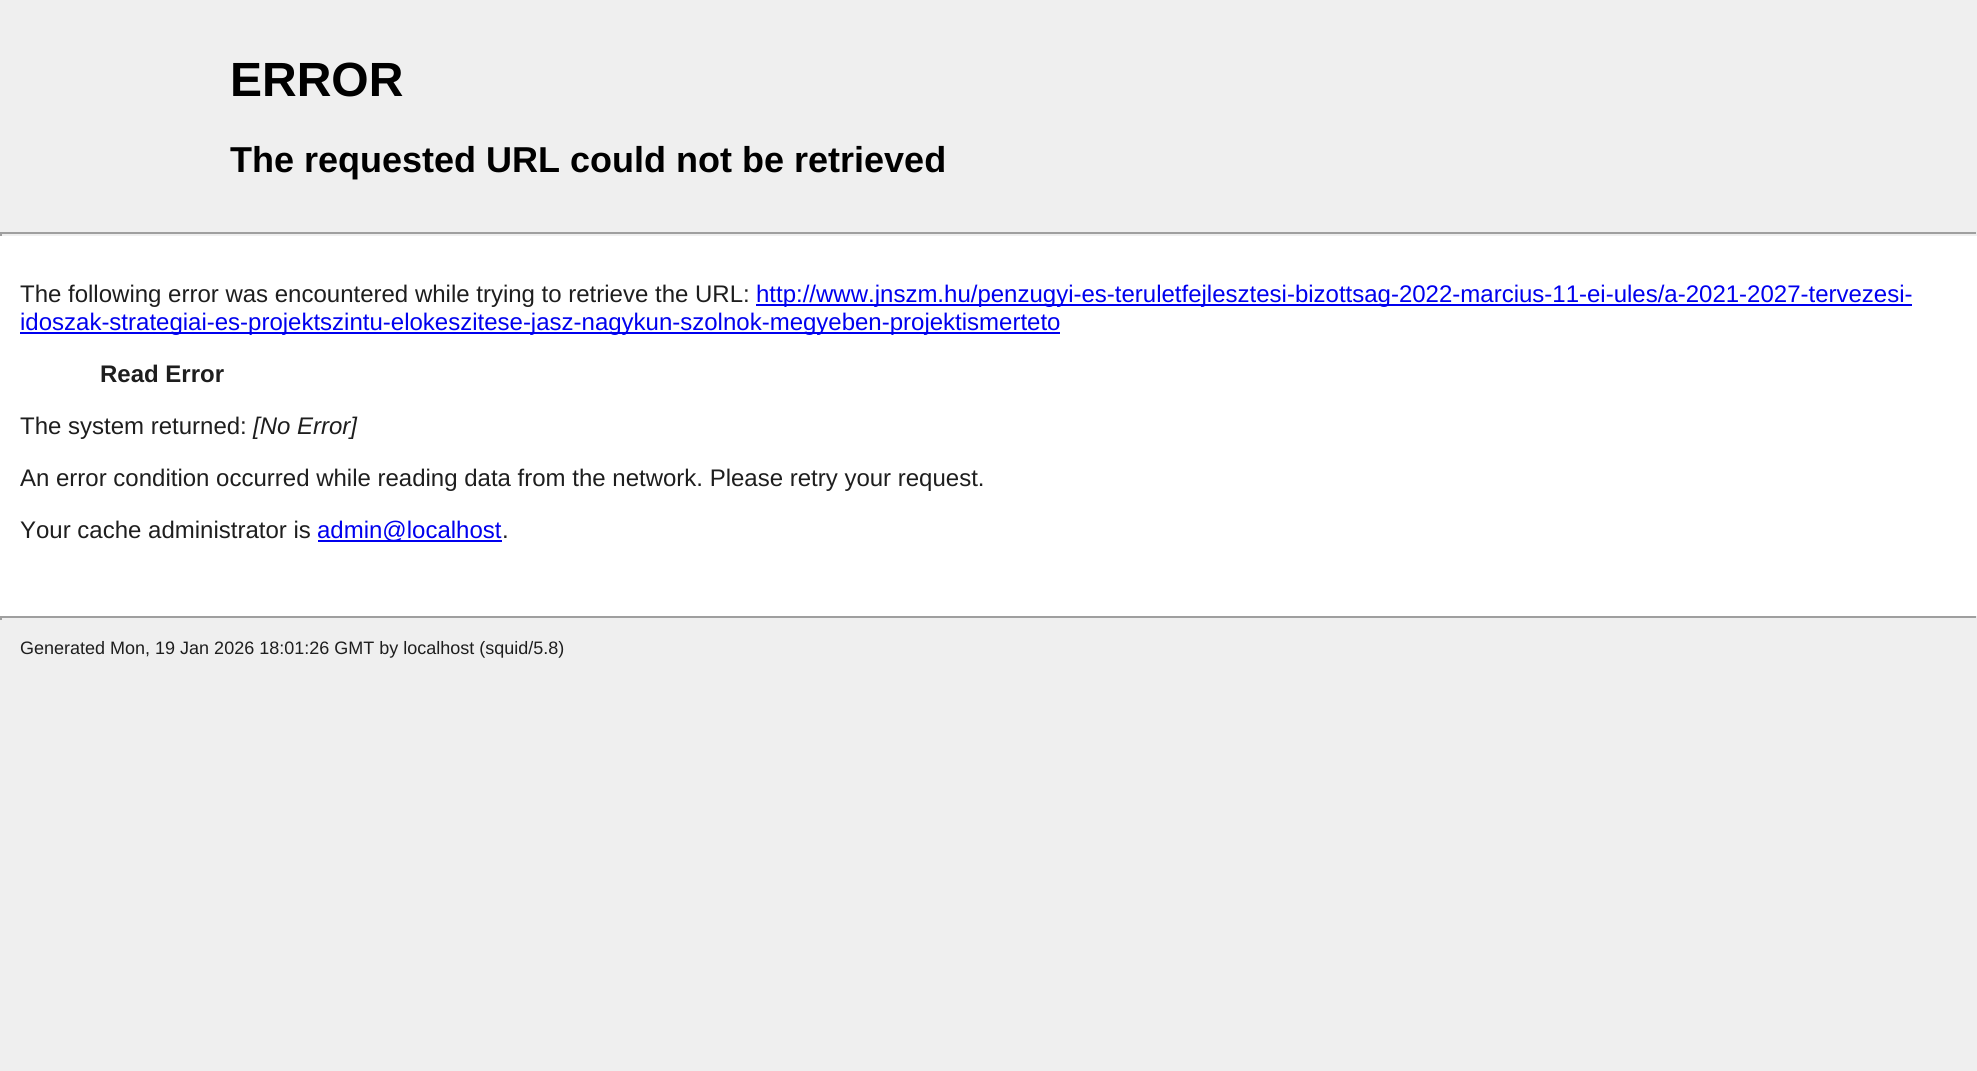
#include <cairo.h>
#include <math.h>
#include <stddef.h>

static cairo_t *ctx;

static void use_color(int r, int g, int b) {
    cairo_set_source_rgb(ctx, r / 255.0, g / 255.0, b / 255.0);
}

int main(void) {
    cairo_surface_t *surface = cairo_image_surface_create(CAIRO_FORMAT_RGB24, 1977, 1071);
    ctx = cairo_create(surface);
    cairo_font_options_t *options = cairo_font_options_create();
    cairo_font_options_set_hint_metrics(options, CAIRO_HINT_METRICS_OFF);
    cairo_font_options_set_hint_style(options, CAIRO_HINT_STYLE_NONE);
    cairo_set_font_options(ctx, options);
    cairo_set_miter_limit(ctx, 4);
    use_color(239, 239, 239);
    cairo_paint(ctx);
    cairo_select_font_face(ctx, "Liberation Sans", CAIRO_FONT_SLANT_NORMAL, CAIRO_FONT_WEIGHT_BOLD);
    cairo_set_font_size(ctx, 48);
    use_color(0, 0, 0);
    cairo_move_to(ctx, 230, 96);
    cairo_show_text(ctx, "ERROR");
    cairo_set_font_size(ctx, 36);
    cairo_move_to(ctx, 230, 172);
    cairo_show_text(ctx, "The requested URL could not be retrieved");
    use_color(159, 159, 159);
    cairo_rectangle(ctx, 0, 232, 1977, 2);
    cairo_fill(ctx);
    use_color(238, 238, 238);
    cairo_rectangle(ctx, 1976, 232, 1, 4);
    cairo_fill(ctx);
    use_color(159, 159, 159);
    cairo_rectangle(ctx, 0, 232, 2, 4);
    cairo_fill(ctx);
    use_color(255, 255, 255);
    cairo_rectangle(ctx, 0, 236, 1977, 380);
    cairo_fill(ctx);
    cairo_select_font_face(ctx, "Liberation Sans", CAIRO_FONT_SLANT_NORMAL, CAIRO_FONT_WEIGHT_NORMAL);
    cairo_set_font_size(ctx, 24);
    use_color(30, 30, 30);
    cairo_move_to(ctx, 20, 302);
    cairo_show_text(ctx, "The following error was encountered while trying to retrieve the URL:");
    use_color(0, 0, 238);
    cairo_rectangle(ctx, 756, 304, 1156, 2);
    cairo_fill(ctx);
    cairo_move_to(ctx, 756, 302);
    cairo_show_text(ctx, "http://www.jnszm.hu/penzugyi-es-teruletfejlesztesi-bizottsag-2022-marcius-11-ei-ules/a-2021-2027-tervezesi-");
    cairo_rectangle(ctx, 20, 332, 1040, 2);
    cairo_fill(ctx);
    cairo_move_to(ctx, 20, 330);
    cairo_show_text(ctx, "idoszak-strategiai-es-projektszintu-elokeszitese-jasz-nagykun-szolnok-megyeben-projektismerteto");
    cairo_select_font_face(ctx, "Liberation Sans", CAIRO_FONT_SLANT_NORMAL, CAIRO_FONT_WEIGHT_BOLD);
    use_color(30, 30, 30);
    cairo_move_to(ctx, 100, 382);
    cairo_show_text(ctx, "Read Error");
    cairo_select_font_face(ctx, "Liberation Sans", CAIRO_FONT_SLANT_NORMAL, CAIRO_FONT_WEIGHT_NORMAL);
    cairo_move_to(ctx, 20, 434);
    cairo_show_text(ctx, "The system returned:");
    cairo_select_font_face(ctx, "Liberation Sans", CAIRO_FONT_SLANT_ITALIC, CAIRO_FONT_WEIGHT_NORMAL);
    cairo_move_to(ctx, 253, 434);
    cairo_show_text(ctx, "[No Error]");
    cairo_select_font_face(ctx, "Liberation Sans", CAIRO_FONT_SLANT_NORMAL, CAIRO_FONT_WEIGHT_NORMAL);
    cairo_move_to(ctx, 20, 486);
    cairo_show_text(ctx, "An error condition occurred while reading data from the network. Please retry your request.");
    cairo_move_to(ctx, 20, 538);
    cairo_show_text(ctx, "Your cache administrator is");
    use_color(0, 0, 238);
    cairo_rectangle(ctx, 318, 540, 184, 2);
    cairo_fill(ctx);
    cairo_move_to(ctx, 317, 538);
    cairo_show_text(ctx, "admin@localhost");
    use_color(30, 30, 30);
    cairo_move_to(ctx, 502, 538);
    cairo_show_text(ctx, ".");
    use_color(159, 159, 159);
    cairo_rectangle(ctx, 0, 616, 1977, 2);
    cairo_fill(ctx);
    use_color(238, 238, 238);
    cairo_rectangle(ctx, 1976, 616, 1, 4);
    cairo_fill(ctx);
    use_color(159, 159, 159);
    cairo_rectangle(ctx, 0, 616, 2, 4);
    cairo_fill(ctx);
    cairo_set_font_size(ctx, 18);
    use_color(30, 30, 30);
    cairo_move_to(ctx, 20, 654);
    cairo_show_text(ctx, "Generated Mon, 19 Jan 2026 18:01:26 GMT by localhost (squid/5.8)");
    cairo_surface_write_to_png(surface, "result.png");
    cairo_font_options_destroy(options);
    cairo_destroy(ctx);
    cairo_surface_destroy(surface);
    return 0;
}
